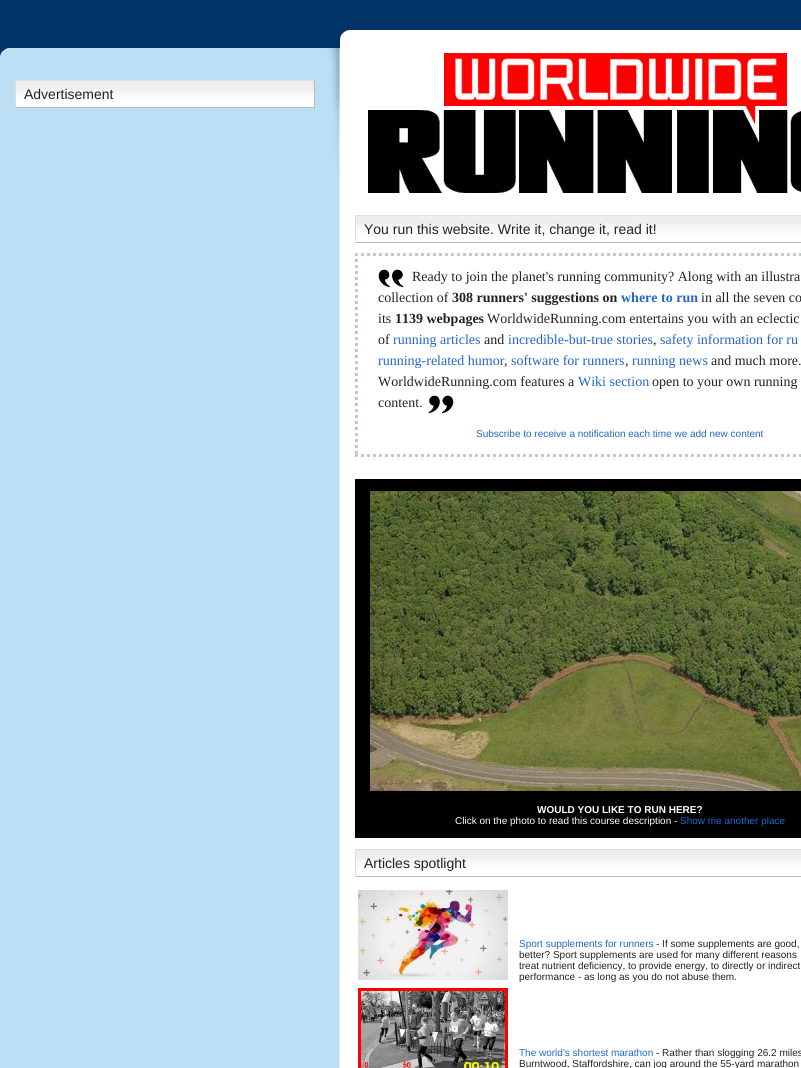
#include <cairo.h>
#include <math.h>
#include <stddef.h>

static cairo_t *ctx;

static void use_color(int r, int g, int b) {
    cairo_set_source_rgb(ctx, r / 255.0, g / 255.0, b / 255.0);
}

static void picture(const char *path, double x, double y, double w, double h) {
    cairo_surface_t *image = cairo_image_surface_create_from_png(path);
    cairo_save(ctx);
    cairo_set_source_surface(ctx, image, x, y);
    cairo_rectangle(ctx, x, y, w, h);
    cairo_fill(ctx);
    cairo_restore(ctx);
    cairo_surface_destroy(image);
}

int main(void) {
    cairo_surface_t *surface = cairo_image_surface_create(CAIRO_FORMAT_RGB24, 801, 1068);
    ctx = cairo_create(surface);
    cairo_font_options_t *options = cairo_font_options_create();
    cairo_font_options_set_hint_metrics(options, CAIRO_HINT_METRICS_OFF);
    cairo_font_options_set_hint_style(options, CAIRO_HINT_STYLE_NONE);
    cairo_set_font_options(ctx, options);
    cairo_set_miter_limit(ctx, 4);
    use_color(255, 255, 255);
    cairo_paint(ctx);
    picture("img1.png", 0, 0, 801, 30);
    picture("img2.png", 0, 30, 801, 200);
    picture("img3.png", 0, 230, 801, 838);
    use_color(238, 238, 238);
    cairo_rectangle(ctx, 16, 81, 298, 8);
    cairo_fill(ctx);
    picture("img4.png", 16, 89, 298, 18);
    use_color(221, 221, 221);
    cairo_rectangle(ctx, 15, 80, 300, 1);
    cairo_fill(ctx);
    use_color(187, 187, 187);
    cairo_rectangle(ctx, 314, 80, 1, 28);
    cairo_fill(ctx);
    cairo_rectangle(ctx, 15, 107, 300, 1);
    cairo_fill(ctx);
    use_color(221, 221, 221);
    cairo_rectangle(ctx, 15, 80, 1, 28);
    cairo_fill(ctx);
    cairo_select_font_face(ctx, "Liberation Sans", CAIRO_FONT_SLANT_NORMAL, CAIRO_FONT_WEIGHT_NORMAL);
    cairo_set_font_size(ctx, 14);
    use_color(34, 34, 34);
    cairo_move_to(ctx, 24, 99);
    cairo_show_text(ctx, "Advertisement");
    picture("img5.png", 368, 52, 433, 141);
    use_color(238, 238, 238);
    cairo_rectangle(ctx, 356, 216, 445, 8);
    cairo_fill(ctx);
    picture("img6.png", 356, 224, 445, 18);
    use_color(221, 221, 221);
    cairo_rectangle(ctx, 355, 215, 446, 1);
    cairo_fill(ctx);
    use_color(187, 187, 187);
    cairo_rectangle(ctx, 355, 242, 446, 1);
    cairo_fill(ctx);
    use_color(221, 221, 221);
    cairo_rectangle(ctx, 355, 215, 1, 28);
    cairo_fill(ctx);
    use_color(34, 34, 34);
    cairo_move_to(ctx, 364, 234);
    cairo_show_text(ctx, "You run this website. Write it, change it, read it!");
    cairo_new_path(ctx);
    cairo_move_to(ctx, 355, 254.5);
    cairo_line_to(ctx, 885, 254.5);
    use_color(187, 204, 204);
    cairo_set_line_width(ctx, 3);
    cairo_set_dash(ctx, (double[]){3, 3}, 2, 0);
    cairo_stroke(ctx);
    cairo_new_path(ctx);
    cairo_move_to(ctx, 355, 455.5);
    cairo_line_to(ctx, 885, 455.5);
    cairo_stroke(ctx);
    cairo_new_path(ctx);
    cairo_move_to(ctx, 356.5, 253);
    cairo_line_to(ctx, 356.5, 457);
    cairo_stroke(ctx);
    picture("img7.png", 378, 269, 26, 19);
    cairo_select_font_face(ctx, "Liberation Serif", CAIRO_FONT_SLANT_NORMAL, CAIRO_FONT_WEIGHT_NORMAL);
    use_color(34, 34, 34);
    cairo_move_to(ctx, 412, 281);
    cairo_show_text(ctx, "Ready to join the planet's running community? Along with an illustra");
    cairo_move_to(ctx, 378, 302);
    cairo_show_text(ctx, "collection of");
    cairo_select_font_face(ctx, "Liberation Serif", CAIRO_FONT_SLANT_NORMAL, CAIRO_FONT_WEIGHT_BOLD);
    cairo_move_to(ctx, 452, 302);
    cairo_show_text(ctx, "308 runners' suggestions on");
    use_color(34, 102, 204);
    cairo_move_to(ctx, 621, 302);
    cairo_show_text(ctx, "where to run");
    cairo_select_font_face(ctx, "Liberation Serif", CAIRO_FONT_SLANT_NORMAL, CAIRO_FONT_WEIGHT_NORMAL);
    use_color(34, 34, 34);
    cairo_move_to(ctx, 701, 302);
    cairo_show_text(ctx, "in all the seven co");
    cairo_move_to(ctx, 378, 323);
    cairo_show_text(ctx, "its");
    cairo_select_font_face(ctx, "Liberation Serif", CAIRO_FONT_SLANT_NORMAL, CAIRO_FONT_WEIGHT_BOLD);
    cairo_move_to(ctx, 395, 323);
    cairo_show_text(ctx, "1139 webpages");
    cairo_select_font_face(ctx, "Liberation Serif", CAIRO_FONT_SLANT_NORMAL, CAIRO_FONT_WEIGHT_NORMAL);
    cairo_move_to(ctx, 487, 323);
    cairo_show_text(ctx, "WorldwideRunning.com entertains you with an eclectic");
    cairo_move_to(ctx, 378, 344);
    cairo_show_text(ctx, "of");
    use_color(34, 102, 204);
    cairo_move_to(ctx, 393, 344);
    cairo_show_text(ctx, "running articles");
    use_color(34, 34, 34);
    cairo_move_to(ctx, 484, 344);
    cairo_show_text(ctx, "and");
    use_color(34, 102, 204);
    cairo_move_to(ctx, 508, 344);
    cairo_show_text(ctx, "incredible-but-true stories");
    use_color(34, 34, 34);
    cairo_move_to(ctx, 653, 344);
    cairo_show_text(ctx, ",");
    use_color(34, 102, 204);
    cairo_move_to(ctx, 660, 344);
    cairo_show_text(ctx, "safety information for ru");
    cairo_move_to(ctx, 378, 365);
    cairo_show_text(ctx, "running-related humor");
    use_color(34, 34, 34);
    cairo_move_to(ctx, 504, 365);
    cairo_show_text(ctx, ",");
    use_color(34, 102, 204);
    cairo_move_to(ctx, 511, 365);
    cairo_show_text(ctx, "software for runners");
    use_color(34, 34, 34);
    cairo_move_to(ctx, 625, 365);
    cairo_show_text(ctx, ",");
    use_color(34, 102, 204);
    cairo_move_to(ctx, 632, 365);
    cairo_show_text(ctx, "running news");
    use_color(34, 34, 34);
    cairo_move_to(ctx, 711, 365);
    cairo_show_text(ctx, "and much more.");
    cairo_move_to(ctx, 378, 386);
    cairo_show_text(ctx, "WorldwideRunning.com features a");
    use_color(34, 102, 204);
    cairo_move_to(ctx, 578, 386);
    cairo_show_text(ctx, "Wiki section");
    use_color(34, 34, 34);
    cairo_move_to(ctx, 652, 386);
    cairo_show_text(ctx, "open to your own running");
    cairo_move_to(ctx, 378, 407);
    cairo_show_text(ctx, "content.");
    picture("img8.png", 428, 395, 26, 19);
    cairo_select_font_face(ctx, "Liberation Sans", CAIRO_FONT_SLANT_NORMAL, CAIRO_FONT_WEIGHT_NORMAL);
    cairo_set_font_size(ctx, 10);
    use_color(34, 102, 204);
    cairo_move_to(ctx, 476, 437);
    cairo_show_text(ctx, "Subscribe to receive a notification each time we add new content");
    use_color(0, 0, 0);
    cairo_rectangle(ctx, 355, 479, 446, 359);
    cairo_fill(ctx);
    picture("img9.png", 370, 491, 431, 300);
    cairo_select_font_face(ctx, "Liberation Sans", CAIRO_FONT_SLANT_NORMAL, CAIRO_FONT_WEIGHT_BOLD);
    use_color(255, 255, 255);
    cairo_move_to(ctx, 537, 813);
    cairo_show_text(ctx, "WOULD YOU LIKE TO RUN HERE?");
    cairo_select_font_face(ctx, "Liberation Sans", CAIRO_FONT_SLANT_NORMAL, CAIRO_FONT_WEIGHT_NORMAL);
    cairo_move_to(ctx, 455, 824);
    cairo_show_text(ctx, "Click on the photo to read this course description -");
    use_color(34, 102, 204);
    cairo_move_to(ctx, 680, 824);
    cairo_show_text(ctx, "Show me another place");
    use_color(238, 238, 238);
    cairo_rectangle(ctx, 356, 850, 445, 8);
    cairo_fill(ctx);
    picture("img6.png", 356, 858, 445, 18);
    use_color(221, 221, 221);
    cairo_rectangle(ctx, 355, 849, 446, 1);
    cairo_fill(ctx);
    use_color(187, 187, 187);
    cairo_rectangle(ctx, 355, 876, 446, 1);
    cairo_fill(ctx);
    use_color(221, 221, 221);
    cairo_rectangle(ctx, 355, 849, 1, 28);
    cairo_fill(ctx);
    cairo_set_font_size(ctx, 14);
    use_color(34, 34, 34);
    cairo_move_to(ctx, 364, 868);
    cairo_show_text(ctx, "Articles spotlight");
    picture("img10.png", 358, 890, 150, 90);
    cairo_set_font_size(ctx, 10);
    use_color(34, 102, 204);
    cairo_move_to(ctx, 519, 947);
    cairo_show_text(ctx, "Sport supplements for runners");
    use_color(34, 34, 34);
    cairo_move_to(ctx, 656, 947);
    cairo_show_text(ctx, "- If some supplements are good,");
    cairo_move_to(ctx, 519, 958);
    cairo_show_text(ctx, "better? Sport supplements are used for many different reasons");
    cairo_move_to(ctx, 519, 969);
    cairo_show_text(ctx, "treat nutrient deficiency, to provide energy, to directly or indirect");
    cairo_move_to(ctx, 519, 980);
    cairo_show_text(ctx, "performance - as long as you do not abuse them.");
    picture("img11.png", 358, 988, 150, 80);
    use_color(34, 102, 204);
    cairo_move_to(ctx, 519, 1056);
    cairo_show_text(ctx, "The world's shortest marathon");
    use_color(34, 34, 34);
    cairo_move_to(ctx, 656, 1056);
    cairo_show_text(ctx, "- Rather than slogging 26.2 miles");
    cairo_move_to(ctx, 519, 1067);
    cairo_show_text(ctx, "Burntwood, Staffordshire, can jog around the 55-yard marathon");
    cairo_surface_write_to_png(surface, "result.png");
    cairo_font_options_destroy(options);
    cairo_destroy(ctx);
    cairo_surface_destroy(surface);
    return 0;
}
